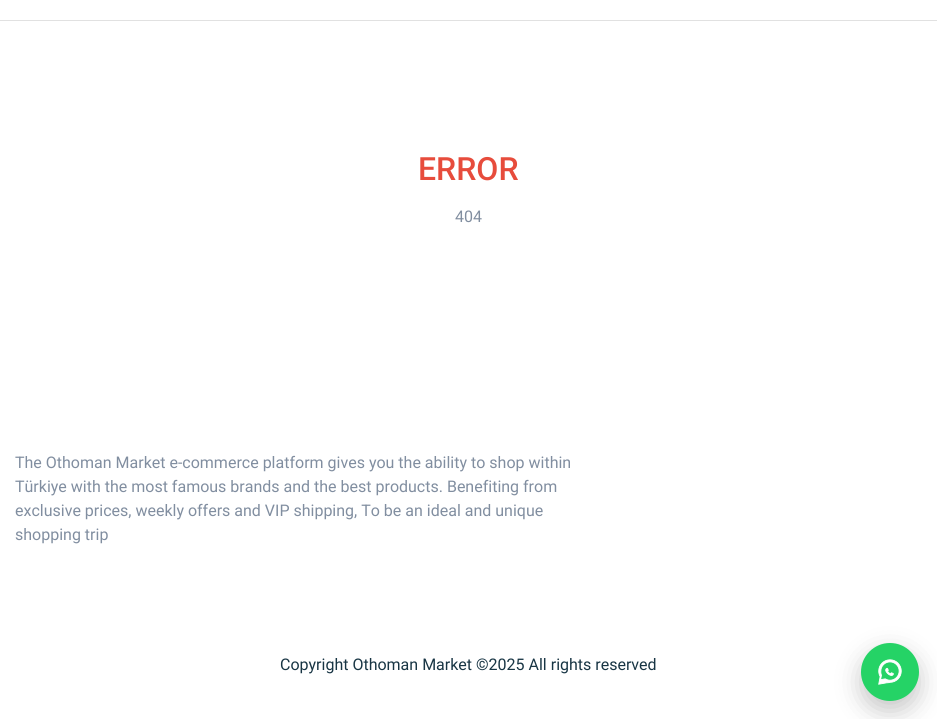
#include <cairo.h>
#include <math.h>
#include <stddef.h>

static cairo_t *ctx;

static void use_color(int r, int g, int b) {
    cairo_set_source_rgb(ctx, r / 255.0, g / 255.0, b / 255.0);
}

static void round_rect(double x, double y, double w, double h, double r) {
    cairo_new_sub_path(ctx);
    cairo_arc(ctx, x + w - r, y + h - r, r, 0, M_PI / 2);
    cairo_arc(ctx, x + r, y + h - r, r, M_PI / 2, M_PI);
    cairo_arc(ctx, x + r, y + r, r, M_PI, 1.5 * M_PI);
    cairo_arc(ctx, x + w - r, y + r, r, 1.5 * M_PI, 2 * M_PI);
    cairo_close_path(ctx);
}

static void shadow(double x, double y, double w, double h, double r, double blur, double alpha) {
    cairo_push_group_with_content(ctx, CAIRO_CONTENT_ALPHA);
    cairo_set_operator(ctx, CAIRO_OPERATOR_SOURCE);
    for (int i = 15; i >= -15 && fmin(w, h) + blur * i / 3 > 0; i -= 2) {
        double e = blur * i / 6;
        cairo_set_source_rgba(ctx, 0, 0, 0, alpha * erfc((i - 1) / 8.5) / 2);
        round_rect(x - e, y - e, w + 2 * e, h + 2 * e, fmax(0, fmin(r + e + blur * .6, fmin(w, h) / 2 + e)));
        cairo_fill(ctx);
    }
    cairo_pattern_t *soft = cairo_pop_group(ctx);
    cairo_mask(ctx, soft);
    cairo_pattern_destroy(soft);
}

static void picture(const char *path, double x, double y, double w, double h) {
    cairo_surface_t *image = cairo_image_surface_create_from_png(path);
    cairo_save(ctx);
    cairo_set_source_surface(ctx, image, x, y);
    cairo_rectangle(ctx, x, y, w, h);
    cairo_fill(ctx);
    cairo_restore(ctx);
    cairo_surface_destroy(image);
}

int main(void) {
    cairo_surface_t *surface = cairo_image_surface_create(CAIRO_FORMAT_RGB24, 937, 719);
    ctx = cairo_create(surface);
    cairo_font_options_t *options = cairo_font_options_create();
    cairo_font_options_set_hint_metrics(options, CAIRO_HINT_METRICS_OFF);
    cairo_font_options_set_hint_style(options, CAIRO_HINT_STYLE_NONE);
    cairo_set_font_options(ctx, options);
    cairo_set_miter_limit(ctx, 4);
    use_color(255, 255, 255);
    cairo_paint(ctx);
    use_color(225, 225, 225);
    cairo_rectangle(ctx, 0, 20, 937, 1);
    cairo_fill(ctx);
    cairo_select_font_face(ctx, "Roboto Medium", CAIRO_FONT_SLANT_NORMAL, CAIRO_FONT_WEIGHT_NORMAL);
    cairo_set_font_size(ctx, 32);
    use_color(231, 76, 60);
    cairo_move_to(ctx, 418, 180);
    cairo_show_text(ctx, "ERROR");
    cairo_select_font_face(ctx, "Roboto", CAIRO_FONT_SLANT_NORMAL, CAIRO_FONT_WEIGHT_NORMAL);
    cairo_set_font_size(ctx, 16);
    use_color(129, 142, 160);
    cairo_move_to(ctx, 455, 222);
    cairo_show_text(ctx, "404");
    cairo_move_to(ctx, 15, 468);
    cairo_show_text(ctx, "The Othoman Market e-commerce platform gives you the ability to shop within");
    cairo_move_to(ctx, 15, 492);
    cairo_show_text(ctx, "Türkiye with the most famous brands and the best products. Benefiting from");
    cairo_move_to(ctx, 15, 516);
    cairo_show_text(ctx, "exclusive prices, weekly offers and VIP shipping, To be an ideal and unique");
    cairo_move_to(ctx, 15, 540);
    cairo_show_text(ctx, "shopping trip");
    use_color(24, 53, 68);
    cairo_move_to(ctx, 280, 670);
    cairo_show_text(ctx, "Copyright Othoman Market ©2025 All rights reserved");
    use_color(0, 0, 0);
    shadow(861, 653, 58, 58, 29, 12.5, 0.22);
    use_color(37, 211, 102);
    cairo_arc(ctx, 890, 672, 29, 0, 2 * M_PI);
    cairo_fill(ctx);
    picture("img1.png", 878, 659, 24, 26);
    cairo_surface_write_to_png(surface, "result.png");
    cairo_font_options_destroy(options);
    cairo_destroy(ctx);
    cairo_surface_destroy(surface);
    return 0;
}
